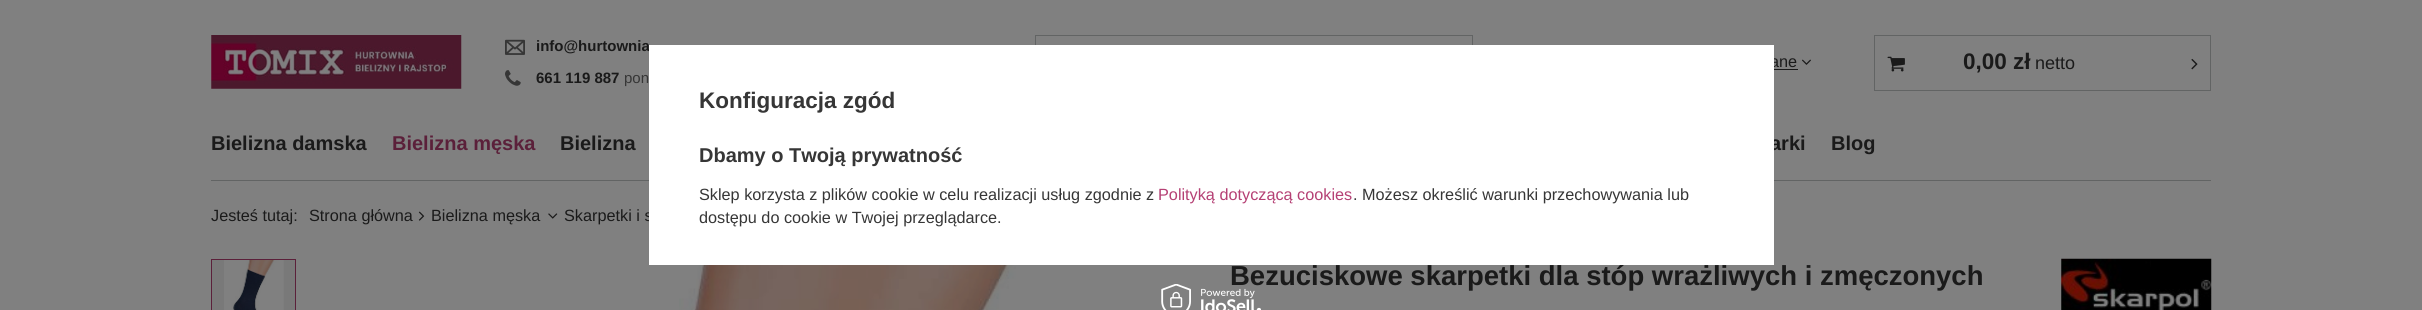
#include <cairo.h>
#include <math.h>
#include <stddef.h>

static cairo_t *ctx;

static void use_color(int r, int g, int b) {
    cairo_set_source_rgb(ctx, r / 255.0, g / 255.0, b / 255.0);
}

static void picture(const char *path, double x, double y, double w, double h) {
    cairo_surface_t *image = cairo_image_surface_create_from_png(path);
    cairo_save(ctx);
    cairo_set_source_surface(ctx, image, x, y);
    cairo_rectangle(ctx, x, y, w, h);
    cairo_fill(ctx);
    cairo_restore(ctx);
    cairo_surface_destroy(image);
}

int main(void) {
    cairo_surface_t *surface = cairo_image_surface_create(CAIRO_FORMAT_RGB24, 2422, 310);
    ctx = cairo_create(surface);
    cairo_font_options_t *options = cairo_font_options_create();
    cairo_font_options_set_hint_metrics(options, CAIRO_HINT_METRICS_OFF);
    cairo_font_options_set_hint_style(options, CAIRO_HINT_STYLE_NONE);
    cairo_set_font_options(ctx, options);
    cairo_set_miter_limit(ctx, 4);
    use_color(128, 128, 128);
    cairo_paint(ctx);
    picture("img1.png", 211, 35, 251, 54);
    picture("img2.png", 505, 39, 20, 16);
    cairo_select_font_face(ctx, "Liberation Sans", CAIRO_FONT_SLANT_NORMAL, CAIRO_FONT_WEIGHT_BOLD);
    cairo_set_font_size(ctx, 15);
    use_color(26, 26, 26);
    cairo_move_to(ctx, 536, 51);
    cairo_show_text(ctx, "info@hurtownia");
    picture("img3.png", 505, 70, 16, 16);
    cairo_move_to(ctx, 536, 83);
    cairo_show_text(ctx, "661 119 887");
    cairo_select_font_face(ctx, "Liberation Sans", CAIRO_FONT_SLANT_NORMAL, CAIRO_FONT_WEIGHT_NORMAL);
    use_color(54, 54, 54);
    cairo_move_to(ctx, 624, 83);
    cairo_show_text(ctx, "pon");
    cairo_rectangle(ctx, 1035.5, 35.5, 437, 55);
    use_color(98, 100, 100);
    cairo_set_line_width(ctx, 1);
    cairo_stroke(ctx);
    cairo_set_font_size(ctx, 16.25);
    use_color(26, 26, 26);
    cairo_move_to(ctx, 1770, 67);
    cairo_show_text(ctx, "ane");
    cairo_rectangle(ctx, 1774, 69, 24, 1);
    cairo_fill(ctx);
    picture("img4.png", 1802, 59, 9, 6);
    cairo_rectangle(ctx, 1874.5, 35.5, 336, 55);
    use_color(98, 100, 100);
    cairo_stroke(ctx);
    picture("img5.png", 1887, 56, 18, 16);
    cairo_select_font_face(ctx, "Liberation Sans", CAIRO_FONT_SLANT_NORMAL, CAIRO_FONT_WEIGHT_BOLD);
    cairo_set_font_size(ctx, 22.5);
    use_color(26, 26, 26);
    cairo_move_to(ctx, 1963, 69);
    cairo_show_text(ctx, "0,00 zł");
    cairo_select_font_face(ctx, "Liberation Sans", CAIRO_FONT_SLANT_NORMAL, CAIRO_FONT_WEIGHT_NORMAL);
    cairo_set_font_size(ctx, 18);
    cairo_move_to(ctx, 2035, 69);
    cairo_show_text(ctx, "netto");
    picture("img6.png", 2191, 58, 7, 12);
    use_color(98, 100, 100);
    cairo_rectangle(ctx, 211, 180, 2000, 1);
    cairo_fill(ctx);
    cairo_select_font_face(ctx, "Liberation Sans", CAIRO_FONT_SLANT_NORMAL, CAIRO_FONT_WEIGHT_BOLD);
    cairo_set_font_size(ctx, 20);
    use_color(26, 26, 26);
    cairo_move_to(ctx, 211, 150);
    cairo_show_text(ctx, "Bielizna damska");
    use_color(91, 32, 58);
    cairo_move_to(ctx, 392, 150);
    cairo_show_text(ctx, "Bielizna męska");
    use_color(26, 26, 26);
    cairo_move_to(ctx, 560, 150);
    cairo_show_text(ctx, "Bielizna");
    cairo_move_to(ctx, 1770, 150);
    cairo_show_text(ctx, "arki");
    cairo_move_to(ctx, 1831, 150);
    cairo_show_text(ctx, "Blog");
    cairo_select_font_face(ctx, "Liberation Sans", CAIRO_FONT_SLANT_NORMAL, CAIRO_FONT_WEIGHT_NORMAL);
    cairo_set_font_size(ctx, 16.25);
    cairo_move_to(ctx, 211, 221);
    cairo_show_text(ctx, "Jesteś tutaj:");
    cairo_move_to(ctx, 309, 221);
    cairo_show_text(ctx, "Strona główna");
    picture("img7.png", 418, 211, 7, 10);
    cairo_move_to(ctx, 431, 221);
    cairo_show_text(ctx, "Bielizna męska");
    picture("img8.png", 548, 213, 10, 6);
    cairo_move_to(ctx, 564, 221);
    cairo_show_text(ctx, "Skarpetki i s");
    use_color(121, 121, 121);
    cairo_rectangle(ctx, 211.5, 259.5, 84, 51);
    cairo_fill_preserve(ctx);
    use_color(91, 32, 58);
    cairo_stroke(ctx);
    picture("img9.png", 224, 260, 60, 50);
    picture("img10.png", 679, 265, 337, 45);
    cairo_select_font_face(ctx, "Liberation Sans", CAIRO_FONT_SLANT_NORMAL, CAIRO_FONT_WEIGHT_BOLD);
    cairo_set_font_size(ctx, 27.5);
    use_color(26, 26, 26);
    cairo_move_to(ctx, 1230, 285);
    cairo_show_text(ctx, "Bezuciskowe skarpetki dla stóp wrażliwych i zmęczonych");
    picture("img11.png", 2061, 258, 151, 52);
    use_color(255, 255, 255);
    cairo_rectangle(ctx, 649, 45, 1125, 220);
    cairo_fill(ctx);
    cairo_set_font_size(ctx, 22.5);
    use_color(54, 54, 54);
    cairo_move_to(ctx, 699, 108);
    cairo_show_text(ctx, "Konfiguracja zgód");
    cairo_set_font_size(ctx, 20);
    cairo_move_to(ctx, 699, 162);
    cairo_show_text(ctx, "Dbamy o Twoją prywatność");
    cairo_select_font_face(ctx, "Liberation Sans", CAIRO_FONT_SLANT_NORMAL, CAIRO_FONT_WEIGHT_NORMAL);
    cairo_set_font_size(ctx, 16.25);
    cairo_move_to(ctx, 699, 200);
    cairo_show_text(ctx, "Sklep korzysta z plików cookie w celu realizacji usług zgodnie z");
    use_color(181, 64, 116);
    cairo_move_to(ctx, 1158, 200);
    cairo_show_text(ctx, "Polityką dotyczącą cookies");
    use_color(54, 54, 54);
    cairo_move_to(ctx, 1353, 200);
    cairo_show_text(ctx, ". Możesz określić warunki przechowywania lub");
    cairo_move_to(ctx, 699, 223);
    cairo_show_text(ctx, "dostępu do cookie w Twojej przeglądarce.");
    picture("img12.png", 1161, 284, 100, 26);
    cairo_surface_write_to_png(surface, "result.png");
    cairo_font_options_destroy(options);
    cairo_destroy(ctx);
    cairo_surface_destroy(surface);
    return 0;
}
